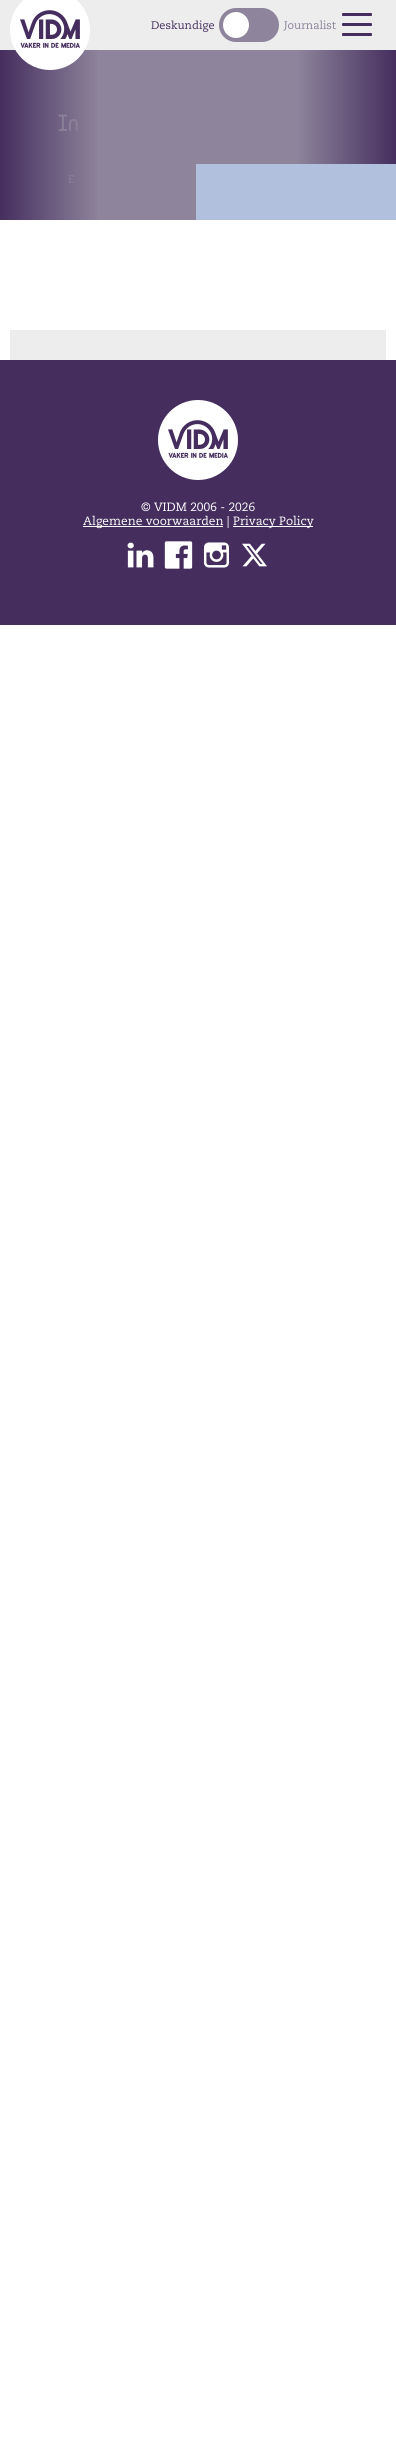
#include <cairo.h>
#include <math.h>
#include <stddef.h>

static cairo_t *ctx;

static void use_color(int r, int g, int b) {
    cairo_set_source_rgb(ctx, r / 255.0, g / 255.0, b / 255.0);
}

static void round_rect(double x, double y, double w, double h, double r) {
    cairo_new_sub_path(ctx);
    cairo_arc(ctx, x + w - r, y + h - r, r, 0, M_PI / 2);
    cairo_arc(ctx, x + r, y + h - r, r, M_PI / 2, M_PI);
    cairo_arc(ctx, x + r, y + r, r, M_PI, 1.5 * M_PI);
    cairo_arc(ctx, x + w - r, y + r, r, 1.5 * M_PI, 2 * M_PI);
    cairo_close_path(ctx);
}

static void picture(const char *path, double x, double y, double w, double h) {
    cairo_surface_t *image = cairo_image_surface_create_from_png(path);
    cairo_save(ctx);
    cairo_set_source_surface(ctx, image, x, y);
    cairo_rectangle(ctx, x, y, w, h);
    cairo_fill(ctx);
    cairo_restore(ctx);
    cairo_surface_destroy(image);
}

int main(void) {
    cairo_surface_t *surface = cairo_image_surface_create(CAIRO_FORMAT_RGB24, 396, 2449);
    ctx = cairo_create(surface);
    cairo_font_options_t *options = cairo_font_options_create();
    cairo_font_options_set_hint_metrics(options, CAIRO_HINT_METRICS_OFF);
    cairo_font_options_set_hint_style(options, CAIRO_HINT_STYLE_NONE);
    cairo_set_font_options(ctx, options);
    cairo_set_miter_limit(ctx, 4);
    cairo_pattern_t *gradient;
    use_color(255, 255, 255);
    cairo_paint(ctx);
    use_color(237, 237, 237);
    cairo_rectangle(ctx, 0, 0, 396, 50);
    cairo_fill(ctx);
    use_color(142, 133, 156);
    cairo_rectangle(ctx, 1, 50, 295, 170);
    cairo_fill(ctx);
    gradient = cairo_pattern_create_linear(0, 110, 100, 110);
    cairo_pattern_add_color_stop_rgba(gradient, 0, 0.271, 0.18, 0.369, 1);
    cairo_pattern_add_color_stop_rgba(gradient, 1, 0.271, 0.18, 0.369, 0);
    cairo_set_source(ctx, gradient);
    cairo_pattern_destroy(gradient);
    cairo_rectangle(ctx, 0, 50, 97, 170);
    cairo_fill(ctx);
    use_color(255, 255, 255);
    cairo_arc(ctx, 50, 30, 40, 0, 2 * M_PI);
    cairo_fill(ctx);
    picture("img1.png", 20, 10, 60, 38);
    cairo_select_font_face(ctx, "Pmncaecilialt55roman", CAIRO_FONT_SLANT_NORMAL, CAIRO_FONT_WEIGHT_NORMAL);
    cairo_set_font_size(ctx, 11);
    use_color(69, 46, 94);
    cairo_move_to(ctx, 151, 29);
    cairo_show_text(ctx, "Deskundige");
    use_color(142, 133, 156);
    round_rect(219, 8, 60, 34, 17);
    cairo_fill(ctx);
    use_color(255, 255, 255);
    cairo_arc(ctx, 236, 25, 13, 0, 2 * M_PI);
    cairo_fill(ctx);
    use_color(138, 128, 153);
    cairo_move_to(ctx, 284, 29);
    cairo_show_text(ctx, "Journalist");
    use_color(69, 46, 94);
    round_rect(342, 23, 30, 3, 1);
    cairo_fill(ctx);
    round_rect(342, 13, 30, 3, 1);
    cairo_fill(ctx);
    round_rect(342, 33, 30, 3, 1);
    cairo_fill(ctx);
    gradient = cairo_pattern_create_linear(296, 110, 396, 110);
    cairo_pattern_add_color_stop_rgba(gradient, 0, 0.557, 0.522, 0.612, 1);
    cairo_pattern_add_color_stop_rgba(gradient, 1, 0.271, 0.18, 0.369, 1);
    cairo_set_source(ctx, gradient);
    cairo_pattern_destroy(gradient);
    cairo_rectangle(ctx, 296, 50, 100, 114);
    cairo_fill(ctx);
    use_color(177, 192, 221);
    cairo_rectangle(ctx, 196, 164, 200, 56);
    cairo_fill(ctx);
    cairo_select_font_face(ctx, "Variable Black", CAIRO_FONT_SLANT_NORMAL, CAIRO_FONT_WEIGHT_NORMAL);
    cairo_set_font_size(ctx, 20);
    use_color(138, 128, 153);
    cairo_move_to(ctx, 58, 131);
    cairo_show_text(ctx, "In");
    cairo_select_font_face(ctx, "Pmncaecilialt55roman", CAIRO_FONT_SLANT_NORMAL, CAIRO_FONT_WEIGHT_NORMAL);
    cairo_set_font_size(ctx, 11);
    cairo_move_to(ctx, 68, 183);
    cairo_show_text(ctx, "E");
    use_color(237, 237, 237);
    cairo_rectangle(ctx, 10, 330, 376, 30);
    cairo_fill(ctx);
    use_color(69, 46, 94);
    cairo_rectangle(ctx, 0, 360, 396, 265);
    cairo_fill(ctx);
    use_color(255, 255, 255);
    cairo_arc(ctx, 198, 440, 40, 0, 2 * M_PI);
    cairo_fill(ctx);
    picture("img1.png", 168, 420, 60, 38);
    cairo_set_font_size(ctx, 12);
    cairo_move_to(ctx, 141, 511);
    cairo_show_text(ctx, "© VIDM 2006 - 2026");
    cairo_rectangle(ctx, 83, 526, 140, 1);
    cairo_fill(ctx);
    cairo_move_to(ctx, 83, 525);
    cairo_show_text(ctx, "Algemene voorwaarden |");
    cairo_rectangle(ctx, 233, 526, 80, 1);
    cairo_fill(ctx);
    cairo_move_to(ctx, 233, 525);
    cairo_show_text(ctx, "Privacy Policy");
    picture("img2.png", 127, 542, 27, 26);
    picture("img3.png", 164, 541, 29, 28);
    picture("img4.png", 203, 542, 26, 26);
    picture("img5.png", 242, 543, 25, 24);
    cairo_surface_write_to_png(surface, "result.png");
    cairo_font_options_destroy(options);
    cairo_destroy(ctx);
    cairo_surface_destroy(surface);
    return 0;
}
